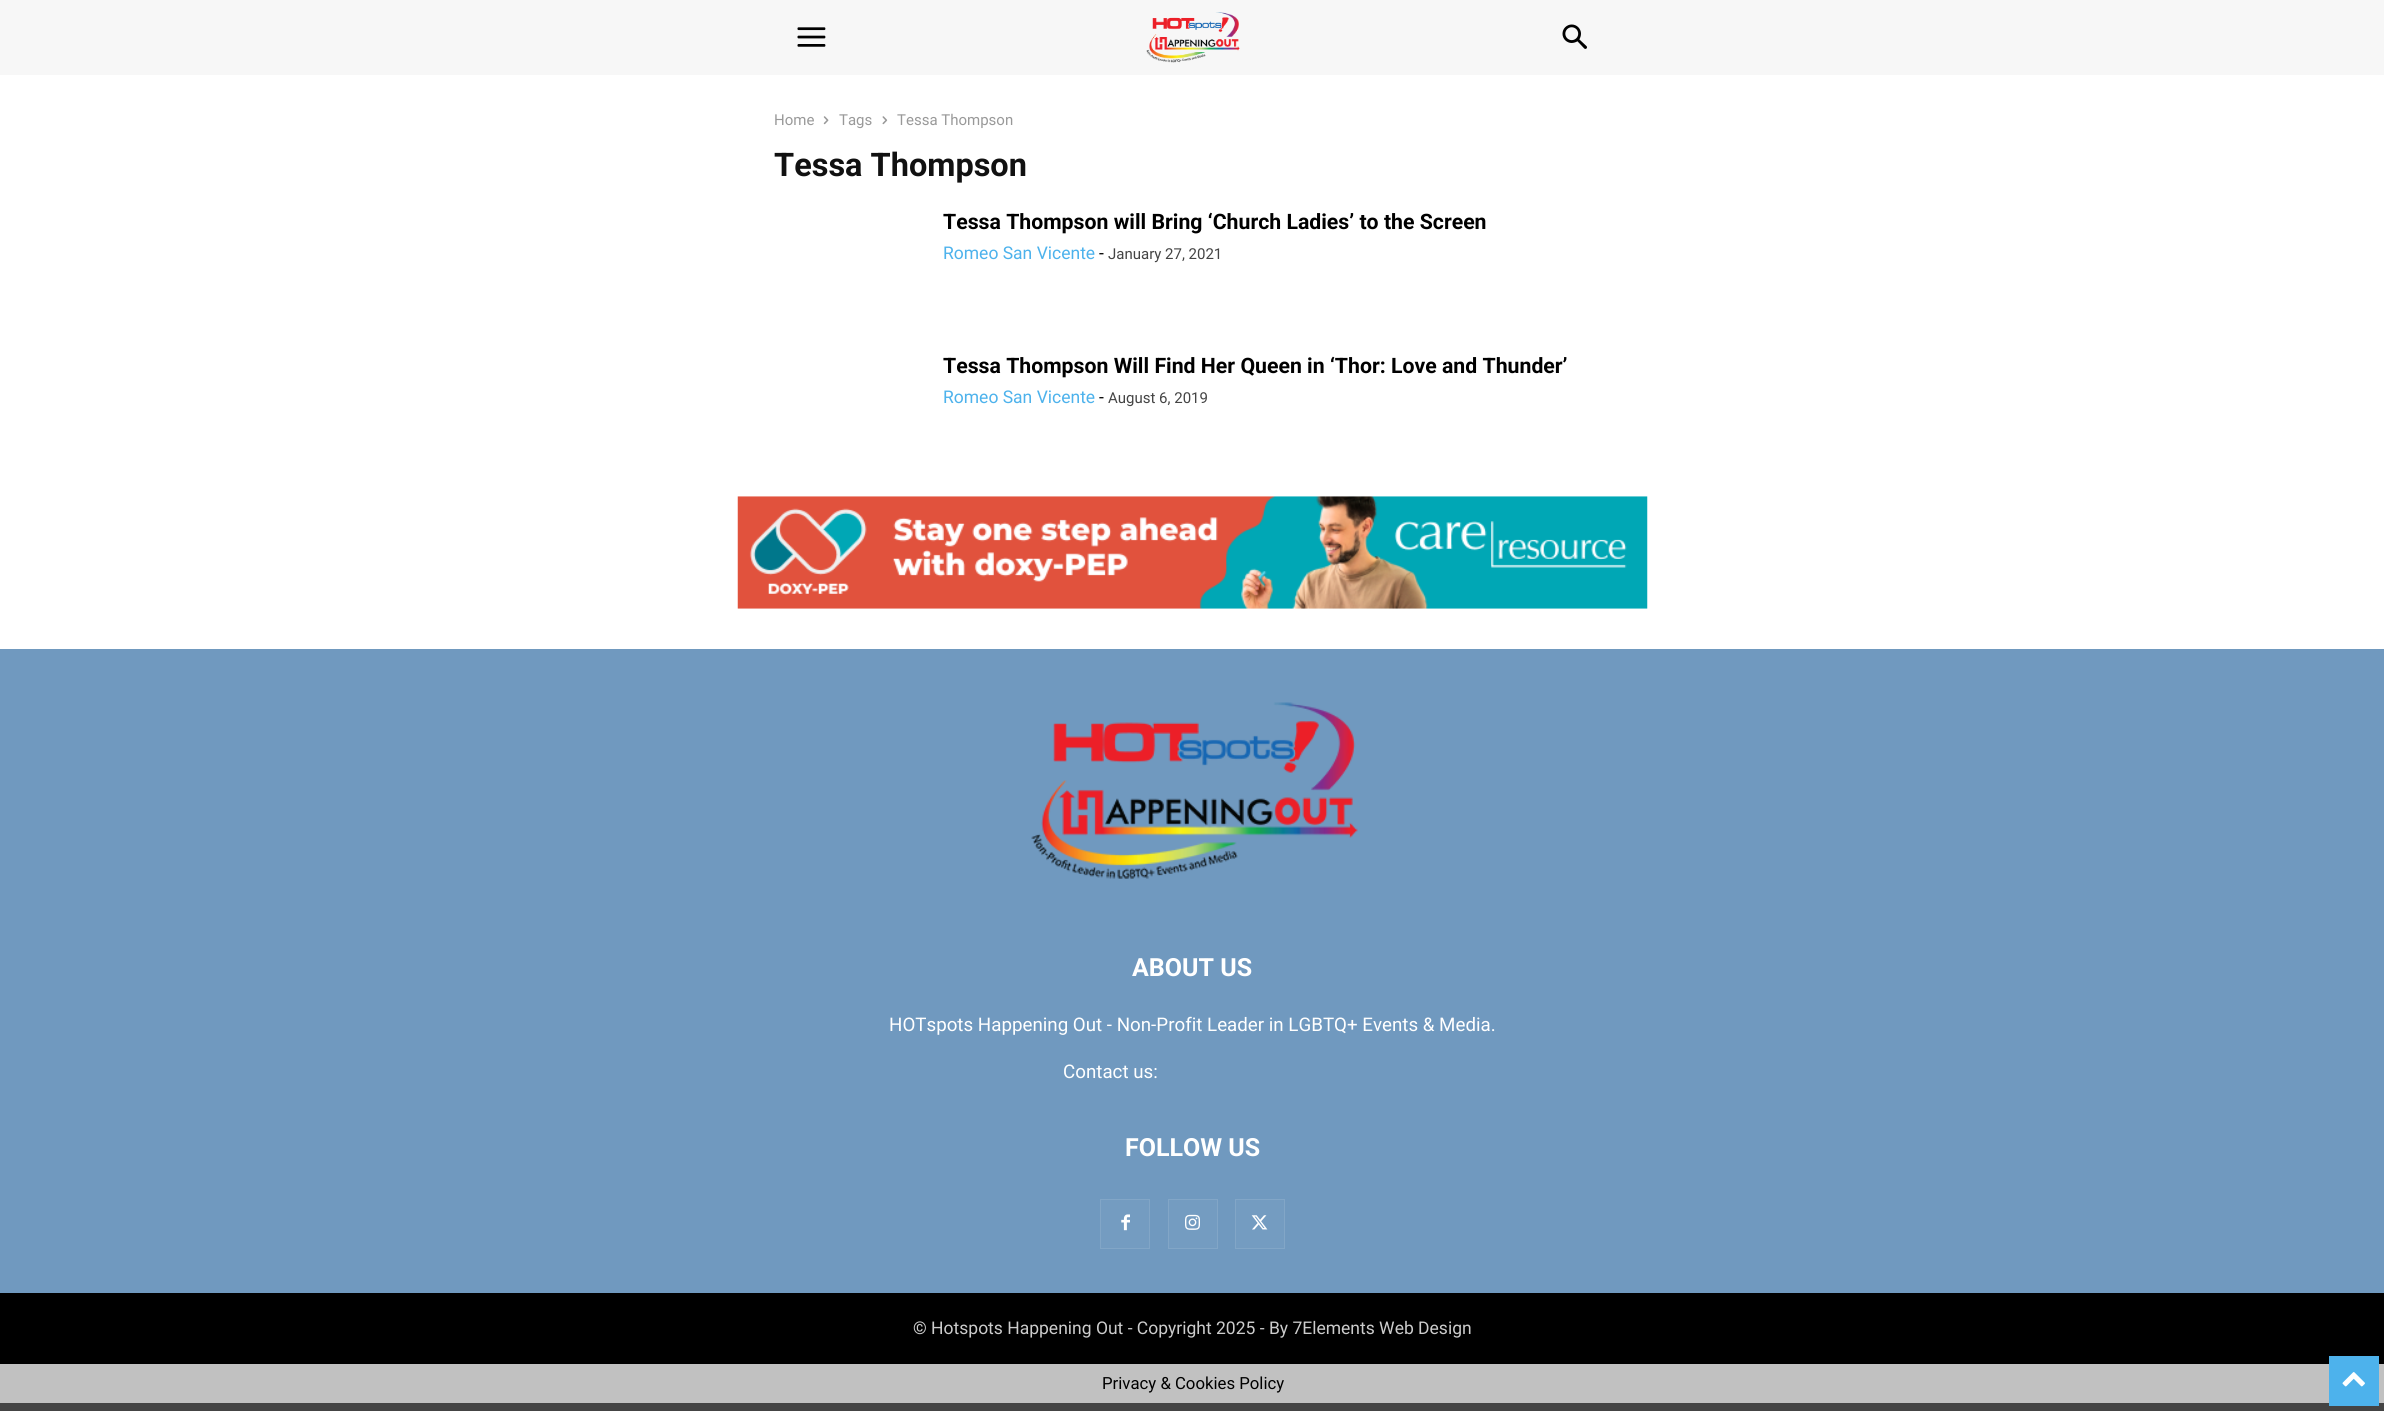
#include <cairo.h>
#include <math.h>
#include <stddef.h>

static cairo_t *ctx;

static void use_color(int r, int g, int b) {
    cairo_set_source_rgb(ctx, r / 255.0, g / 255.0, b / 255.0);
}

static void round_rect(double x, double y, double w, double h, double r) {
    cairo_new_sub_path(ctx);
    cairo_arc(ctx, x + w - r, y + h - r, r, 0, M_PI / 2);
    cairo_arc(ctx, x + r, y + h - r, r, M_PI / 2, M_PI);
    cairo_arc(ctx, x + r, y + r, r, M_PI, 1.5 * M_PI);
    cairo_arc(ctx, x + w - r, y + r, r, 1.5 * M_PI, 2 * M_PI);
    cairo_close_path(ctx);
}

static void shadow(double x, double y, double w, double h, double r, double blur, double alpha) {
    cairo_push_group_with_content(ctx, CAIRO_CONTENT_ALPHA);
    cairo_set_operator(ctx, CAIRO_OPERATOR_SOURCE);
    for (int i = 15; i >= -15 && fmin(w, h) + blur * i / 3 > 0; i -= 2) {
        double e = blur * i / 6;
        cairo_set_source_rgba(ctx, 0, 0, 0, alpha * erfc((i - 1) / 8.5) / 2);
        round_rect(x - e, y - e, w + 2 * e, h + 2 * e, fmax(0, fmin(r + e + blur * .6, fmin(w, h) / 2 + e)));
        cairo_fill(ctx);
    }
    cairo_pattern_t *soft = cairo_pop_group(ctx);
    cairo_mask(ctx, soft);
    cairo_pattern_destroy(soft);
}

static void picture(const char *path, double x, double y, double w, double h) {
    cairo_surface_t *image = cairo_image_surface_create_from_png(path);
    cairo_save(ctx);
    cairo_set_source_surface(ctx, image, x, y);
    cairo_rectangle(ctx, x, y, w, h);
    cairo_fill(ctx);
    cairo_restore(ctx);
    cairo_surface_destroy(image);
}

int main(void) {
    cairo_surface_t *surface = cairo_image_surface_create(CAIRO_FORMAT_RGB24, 2384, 1411);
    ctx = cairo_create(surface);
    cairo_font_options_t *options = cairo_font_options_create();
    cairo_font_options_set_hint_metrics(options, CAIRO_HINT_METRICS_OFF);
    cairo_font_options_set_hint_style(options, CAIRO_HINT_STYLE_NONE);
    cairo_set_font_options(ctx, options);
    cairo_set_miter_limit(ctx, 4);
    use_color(193, 193, 193);
    cairo_paint(ctx);
    use_color(255, 255, 255);
    cairo_rectangle(ctx, 0, 75, 2384, 574);
    cairo_fill(ctx);
    use_color(247, 247, 247);
    cairo_rectangle(ctx, 0, 0, 2384, 75);
    cairo_fill(ctx);
    picture("img1.png", 797, 27, 29, 20);
    picture("img2.png", 1146, 12, 94, 51);
    picture("img3.png", 1562, 24, 25, 25);
    cairo_select_font_face(ctx, "Roboto", CAIRO_FONT_SLANT_NORMAL, CAIRO_FONT_WEIGHT_NORMAL);
    cairo_set_font_size(ctx, 15);
    use_color(153, 153, 153);
    cairo_move_to(ctx, 774, 125);
    cairo_show_text(ctx, "Home");
    picture("img4.png", 823, 116, 6, 9);
    cairo_move_to(ctx, 839, 125);
    cairo_show_text(ctx, "Tags");
    picture("img5.png", 882, 116, 6, 9);
    cairo_move_to(ctx, 897, 125);
    cairo_show_text(ctx, "Tessa Thompson");
    cairo_select_font_face(ctx, "Roboto", CAIRO_FONT_SLANT_NORMAL, CAIRO_FONT_WEIGHT_BOLD);
    cairo_set_font_size(ctx, 32.5);
    use_color(17, 17, 17);
    cairo_move_to(ctx, 774, 176);
    cairo_show_text(ctx, "Tessa Thompson");
    cairo_set_font_size(ctx, 21.25);
    use_color(0, 0, 0);
    cairo_move_to(ctx, 943, 229);
    cairo_show_text(ctx, "Tessa Thompson will Bring ‘Church Ladies’ to the Screen");
    cairo_select_font_face(ctx, "Roboto", CAIRO_FONT_SLANT_NORMAL, CAIRO_FONT_WEIGHT_NORMAL);
    cairo_set_font_size(ctx, 17.5);
    use_color(77, 178, 236);
    cairo_move_to(ctx, 943, 259);
    cairo_show_text(ctx, "Romeo San Vicente");
    use_color(0, 0, 0);
    cairo_move_to(ctx, 1099, 259);
    cairo_show_text(ctx, "-");
    cairo_set_font_size(ctx, 15);
    use_color(68, 68, 68);
    cairo_move_to(ctx, 1108, 259);
    cairo_show_text(ctx, "January 27, 2021");
    cairo_select_font_face(ctx, "Roboto", CAIRO_FONT_SLANT_NORMAL, CAIRO_FONT_WEIGHT_BOLD);
    cairo_set_font_size(ctx, 21.25);
    use_color(0, 0, 0);
    cairo_move_to(ctx, 943, 373);
    cairo_show_text(ctx, "Tessa Thompson Will Find Her Queen in ‘Thor: Love and Thunder’");
    cairo_select_font_face(ctx, "Roboto", CAIRO_FONT_SLANT_NORMAL, CAIRO_FONT_WEIGHT_NORMAL);
    cairo_set_font_size(ctx, 17.5);
    use_color(77, 178, 236);
    cairo_move_to(ctx, 943, 403);
    cairo_show_text(ctx, "Romeo San Vicente");
    use_color(0, 0, 0);
    cairo_move_to(ctx, 1099, 403);
    cairo_show_text(ctx, "-");
    cairo_set_font_size(ctx, 15);
    use_color(68, 68, 68);
    cairo_move_to(ctx, 1108, 403);
    cairo_show_text(ctx, "August 6, 2019");
    picture("img6.png", 737, 496, 911, 113);
    use_color(112, 153, 191);
    cairo_rectangle(ctx, 0, 649, 2384, 644);
    cairo_fill(ctx);
    picture("img7.png", 1031, 702, 327, 177);
    cairo_select_font_face(ctx, "Roboto", CAIRO_FONT_SLANT_NORMAL, CAIRO_FONT_WEIGHT_BOLD);
    cairo_set_font_size(ctx, 25);
    use_color(255, 255, 255);
    cairo_move_to(ctx, 1132, 976);
    cairo_show_text(ctx, "ABOUT US");
    cairo_select_font_face(ctx, "Roboto", CAIRO_FONT_SLANT_NORMAL, CAIRO_FONT_WEIGHT_NORMAL);
    cairo_set_font_size(ctx, 18.75);
    cairo_move_to(ctx, 889, 1031);
    cairo_show_text(ctx, "HOTspots Happening Out - Non-Profit Leader in LGBTQ+ Events & Media.");
    cairo_move_to(ctx, 1063, 1078);
    cairo_show_text(ctx, "Contact us:");
    cairo_select_font_face(ctx, "Roboto", CAIRO_FONT_SLANT_NORMAL, CAIRO_FONT_WEIGHT_BOLD);
    cairo_set_font_size(ctx, 25);
    cairo_move_to(ctx, 1125, 1156);
    cairo_show_text(ctx, "FOLLOW US");
    use_color(116, 156, 193);
    cairo_rectangle(ctx, 1100.5, 1199.5, 49, 49);
    cairo_fill_preserve(ctx);
    use_color(130, 166, 199);
    cairo_set_line_width(ctx, 1);
    cairo_stroke(ctx);
    picture("img8.png", 1121, 1214, 9, 17);
    use_color(116, 156, 193);
    cairo_rectangle(ctx, 1168.5, 1199.5, 49, 49);
    cairo_fill_preserve(ctx);
    use_color(130, 166, 199);
    cairo_stroke(ctx);
    picture("img9.png", 1185, 1214, 15, 16);
    use_color(116, 156, 193);
    cairo_rectangle(ctx, 1235.5, 1199.5, 49, 49);
    cairo_fill_preserve(ctx);
    use_color(130, 166, 199);
    cairo_stroke(ctx);
    picture("img10.png", 1251, 1215, 17, 15);
    cairo_save(ctx);
    cairo_set_fill_rule(ctx, CAIRO_FILL_RULE_EVEN_ODD);
    cairo_new_path(ctx);
    cairo_move_to(ctx, 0, 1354);
    cairo_line_to(ctx, 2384, 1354);
    cairo_line_to(ctx, 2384, 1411);
    cairo_line_to(ctx, 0, 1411);
    cairo_close_path(ctx);
    cairo_move_to(ctx, 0, 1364);
    cairo_line_to(ctx, 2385, 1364);
    cairo_line_to(ctx, 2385, 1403);
    cairo_line_to(ctx, 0, 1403);
    cairo_close_path(ctx);
    cairo_clip(ctx);
    use_color(22, 22, 22);
    shadow(0, 1364, 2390, 44, 0, 3, 1);
    cairo_restore(ctx);
    use_color(0, 0, 0);
    cairo_rectangle(ctx, 0, 1293, 2384, 71);
    cairo_fill(ctx);
    cairo_select_font_face(ctx, "Roboto", CAIRO_FONT_SLANT_NORMAL, CAIRO_FONT_WEIGHT_NORMAL);
    cairo_set_font_size(ctx, 17.5);
    use_color(204, 204, 204);
    cairo_move_to(ctx, 913, 1334);
    cairo_show_text(ctx, "© Hotspots Happening Out - Copyright 2025 - By 7Elements Web Design");
    cairo_set_font_size(ctx, 16.75);
    use_color(0, 0, 0);
    cairo_move_to(ctx, 1102, 1389);
    cairo_show_text(ctx, "Privacy & Cookies Policy");
    use_color(68, 68, 68);
    cairo_rectangle(ctx, 0, 1403, 2384, 8);
    cairo_fill(ctx);
    use_color(77, 178, 236);
    cairo_rectangle(ctx, 2329, 1356, 50, 50);
    cairo_fill(ctx);
    picture("img11.png", 2342, 1372, 23, 15);
    cairo_surface_write_to_png(surface, "result.png");
    cairo_font_options_destroy(options);
    cairo_destroy(ctx);
    cairo_surface_destroy(surface);
    return 0;
}
